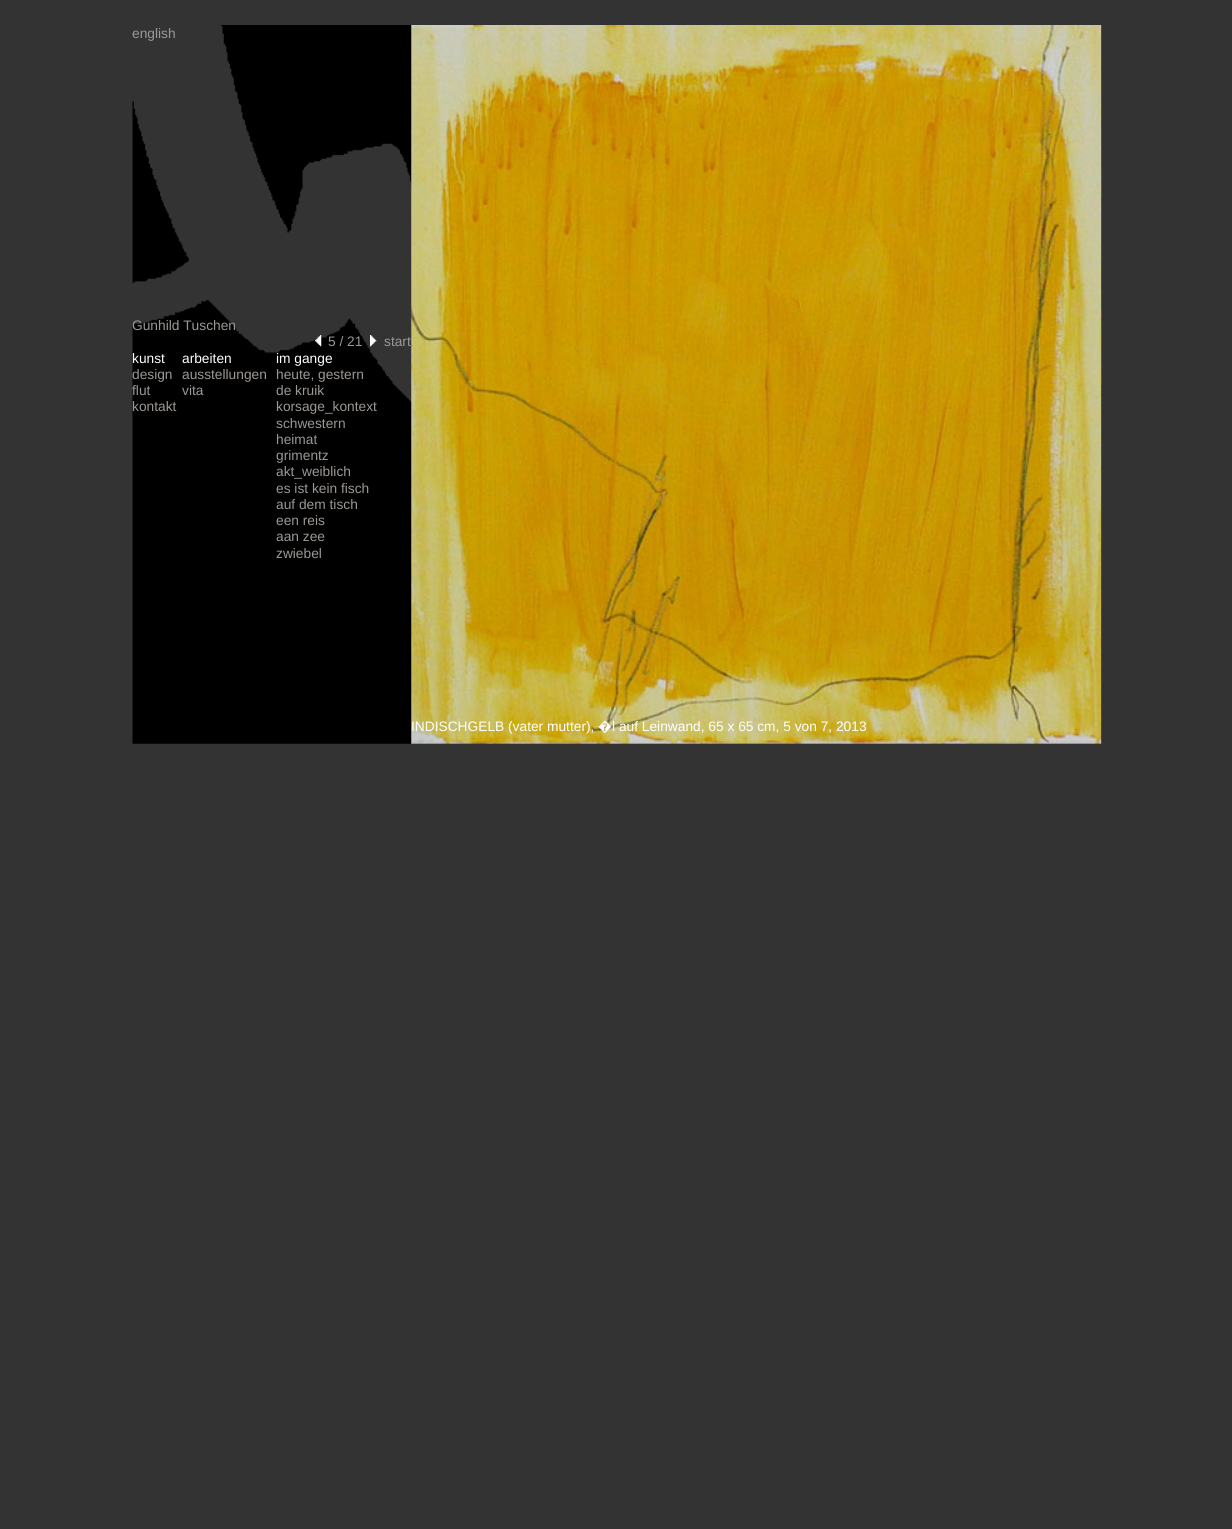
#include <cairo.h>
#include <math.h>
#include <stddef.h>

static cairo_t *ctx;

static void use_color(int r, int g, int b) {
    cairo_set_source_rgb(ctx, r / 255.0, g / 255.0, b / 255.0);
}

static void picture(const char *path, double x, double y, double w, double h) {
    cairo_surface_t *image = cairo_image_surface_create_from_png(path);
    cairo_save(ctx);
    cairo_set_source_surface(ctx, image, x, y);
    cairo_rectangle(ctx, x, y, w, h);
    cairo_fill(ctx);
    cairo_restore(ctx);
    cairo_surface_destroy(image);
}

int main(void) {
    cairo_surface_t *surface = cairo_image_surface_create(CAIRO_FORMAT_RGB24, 1232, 1529);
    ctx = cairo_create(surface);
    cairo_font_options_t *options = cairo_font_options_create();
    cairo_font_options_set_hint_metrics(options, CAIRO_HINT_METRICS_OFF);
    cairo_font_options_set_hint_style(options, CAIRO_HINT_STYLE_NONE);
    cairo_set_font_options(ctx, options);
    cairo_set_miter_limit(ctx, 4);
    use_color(51, 51, 51);
    cairo_paint(ctx);
    picture("img1.png", 132, 25, 970, 719);
    cairo_select_font_face(ctx, "Liberation Sans", CAIRO_FONT_SLANT_NORMAL, CAIRO_FONT_WEIGHT_NORMAL);
    cairo_set_font_size(ctx, 13.75);
    use_color(156, 152, 148);
    cairo_move_to(ctx, 132, 38);
    cairo_show_text(ctx, "english");
    cairo_move_to(ctx, 132, 330);
    cairo_show_text(ctx, "Gunhild Tuschen");
    picture("img2.png", 315, 335, 7, 12);
    cairo_move_to(ctx, 328, 346);
    cairo_show_text(ctx, "5 / 21");
    picture("img3.png", 370, 335, 7, 12);
    cairo_move_to(ctx, 384, 346);
    cairo_show_text(ctx, "start");
    use_color(255, 255, 255);
    cairo_move_to(ctx, 132, 363);
    cairo_show_text(ctx, "kunst");
    use_color(156, 152, 148);
    cairo_move_to(ctx, 132, 379);
    cairo_show_text(ctx, "design");
    cairo_move_to(ctx, 132, 395);
    cairo_show_text(ctx, "flut");
    cairo_move_to(ctx, 132, 411);
    cairo_show_text(ctx, "kontakt");
    use_color(255, 255, 255);
    cairo_move_to(ctx, 182, 363);
    cairo_show_text(ctx, "arbeiten");
    use_color(156, 152, 148);
    cairo_move_to(ctx, 182, 379);
    cairo_show_text(ctx, "ausstellungen");
    cairo_move_to(ctx, 182, 395);
    cairo_show_text(ctx, "vita");
    use_color(255, 255, 255);
    cairo_move_to(ctx, 276, 363);
    cairo_show_text(ctx, "im gange");
    use_color(156, 152, 148);
    cairo_move_to(ctx, 276, 379);
    cairo_show_text(ctx, "heute, gestern");
    cairo_move_to(ctx, 276, 395);
    cairo_show_text(ctx, "de kruik");
    cairo_move_to(ctx, 276, 411);
    cairo_show_text(ctx, "korsage_kontext");
    cairo_move_to(ctx, 276, 428);
    cairo_show_text(ctx, "schwestern");
    cairo_move_to(ctx, 276, 444);
    cairo_show_text(ctx, "heimat");
    cairo_move_to(ctx, 276, 460);
    cairo_show_text(ctx, "grimentz");
    cairo_move_to(ctx, 276, 476);
    cairo_show_text(ctx, "akt_weiblich");
    cairo_move_to(ctx, 276, 493);
    cairo_show_text(ctx, "es ist kein fisch");
    cairo_move_to(ctx, 276, 509);
    cairo_show_text(ctx, "auf dem tisch");
    cairo_move_to(ctx, 276, 525);
    cairo_show_text(ctx, "een reis");
    cairo_move_to(ctx, 276, 541);
    cairo_show_text(ctx, "aan zee");
    cairo_move_to(ctx, 276, 558);
    cairo_show_text(ctx, "zwiebel");
    picture("img4.png", 411, 25, 691, 719);
    use_color(255, 255, 255);
    cairo_move_to(ctx, 411, 731);
    cairo_show_text(ctx, "INDISCHGELB (vater mutter),");
    cairo_select_font_face(ctx, "Noto Sans", CAIRO_FONT_SLANT_NORMAL, CAIRO_FONT_WEIGHT_NORMAL);
    cairo_move_to(ctx, 598, 731);
    cairo_show_text(ctx, "�");
    cairo_select_font_face(ctx, "Liberation Sans", CAIRO_FONT_SLANT_NORMAL, CAIRO_FONT_WEIGHT_NORMAL);
    cairo_move_to(ctx, 612, 731);
    cairo_show_text(ctx, "l auf Leinwand, 65 x 65 cm, 5 von 7, 2013");
    cairo_surface_write_to_png(surface, "result.png");
    cairo_font_options_destroy(options);
    cairo_destroy(ctx);
    cairo_surface_destroy(surface);
    return 0;
}
